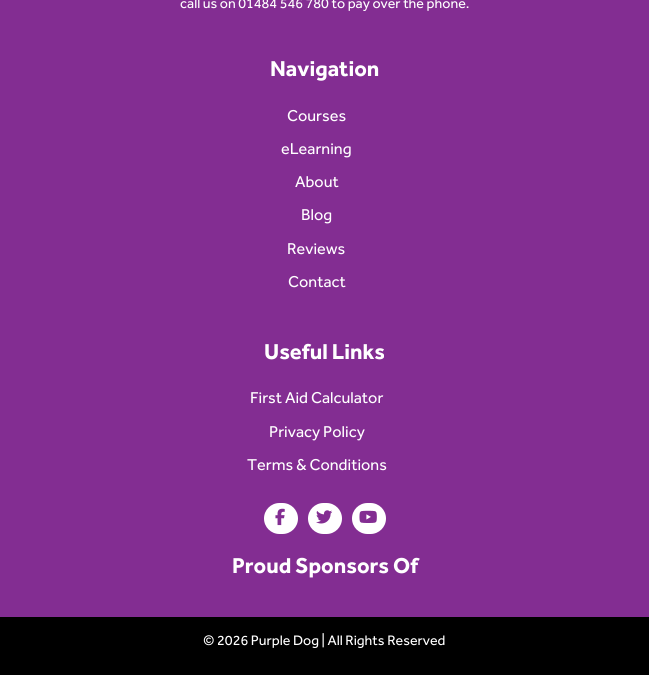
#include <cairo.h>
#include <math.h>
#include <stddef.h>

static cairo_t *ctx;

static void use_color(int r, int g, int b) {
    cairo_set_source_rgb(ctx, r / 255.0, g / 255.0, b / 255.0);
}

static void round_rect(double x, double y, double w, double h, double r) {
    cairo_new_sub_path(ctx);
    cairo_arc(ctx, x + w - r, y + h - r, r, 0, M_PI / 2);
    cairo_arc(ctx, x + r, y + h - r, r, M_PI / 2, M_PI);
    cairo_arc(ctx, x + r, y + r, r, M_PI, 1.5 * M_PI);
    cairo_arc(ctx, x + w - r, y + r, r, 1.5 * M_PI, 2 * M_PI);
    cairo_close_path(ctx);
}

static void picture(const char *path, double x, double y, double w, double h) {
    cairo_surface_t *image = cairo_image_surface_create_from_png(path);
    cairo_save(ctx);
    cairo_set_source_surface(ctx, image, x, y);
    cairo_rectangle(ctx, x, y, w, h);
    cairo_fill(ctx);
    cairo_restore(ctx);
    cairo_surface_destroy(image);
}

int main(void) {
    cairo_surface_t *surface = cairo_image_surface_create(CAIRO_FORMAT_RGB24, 649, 675);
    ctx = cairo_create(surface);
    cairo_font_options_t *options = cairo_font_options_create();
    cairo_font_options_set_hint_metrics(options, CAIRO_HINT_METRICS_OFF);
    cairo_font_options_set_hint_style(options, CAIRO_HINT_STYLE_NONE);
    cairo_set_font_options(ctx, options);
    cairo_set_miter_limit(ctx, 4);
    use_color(131, 45, 146);
    cairo_paint(ctx);
    cairo_select_font_face(ctx, "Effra", CAIRO_FONT_SLANT_NORMAL, CAIRO_FONT_WEIGHT_NORMAL);
    cairo_set_font_size(ctx, 14.25);
    use_color(255, 255, 255);
    cairo_move_to(ctx, 180, 8);
    cairo_show_text(ctx, "call us on 01484 546 780 to pay over the phone.");
    cairo_select_font_face(ctx, "Effra", CAIRO_FONT_SLANT_NORMAL, CAIRO_FONT_WEIGHT_BOLD);
    cairo_set_font_size(ctx, 22.25);
    cairo_move_to(ctx, 270, 76);
    cairo_show_text(ctx, "Navigation");
    cairo_select_font_face(ctx, "Effra", CAIRO_FONT_SLANT_NORMAL, CAIRO_FONT_WEIGHT_NORMAL);
    cairo_set_font_size(ctx, 16.25);
    cairo_move_to(ctx, 287, 121);
    cairo_show_text(ctx, "Courses");
    cairo_move_to(ctx, 281, 154);
    cairo_show_text(ctx, "eLearning");
    cairo_move_to(ctx, 295, 187);
    cairo_show_text(ctx, "About");
    cairo_move_to(ctx, 301, 220);
    cairo_show_text(ctx, "Blog");
    cairo_move_to(ctx, 287, 254);
    cairo_show_text(ctx, "Reviews");
    cairo_move_to(ctx, 288, 287);
    cairo_show_text(ctx, "Contact");
    cairo_select_font_face(ctx, "Effra", CAIRO_FONT_SLANT_NORMAL, CAIRO_FONT_WEIGHT_BOLD);
    cairo_set_font_size(ctx, 22.25);
    cairo_move_to(ctx, 264, 359);
    cairo_show_text(ctx, "Useful Links");
    cairo_select_font_face(ctx, "Effra", CAIRO_FONT_SLANT_NORMAL, CAIRO_FONT_WEIGHT_NORMAL);
    cairo_set_font_size(ctx, 16.25);
    cairo_move_to(ctx, 250, 403);
    cairo_show_text(ctx, "First Aid Calculator");
    cairo_move_to(ctx, 269, 437);
    cairo_show_text(ctx, "Privacy Policy");
    cairo_move_to(ctx, 247, 470);
    cairo_show_text(ctx, "Terms & Conditions");
    round_rect(264, 503, 34, 31, 15.5);
    cairo_fill(ctx);
    picture("img1.png", 275, 508, 10, 18);
    round_rect(308, 503, 34, 31, 15.5);
    cairo_fill(ctx);
    picture("img2.png", 316, 510, 17, 14);
    round_rect(352, 503, 34, 31, 15.5);
    cairo_fill(ctx);
    picture("img3.png", 359, 510, 18, 13);
    cairo_select_font_face(ctx, "Effra", CAIRO_FONT_SLANT_NORMAL, CAIRO_FONT_WEIGHT_BOLD);
    cairo_set_font_size(ctx, 22.25);
    cairo_move_to(ctx, 232, 573);
    cairo_show_text(ctx, "Proud Sponsors Of");
    use_color(0, 0, 0);
    cairo_rectangle(ctx, 0, 617, 649, 58);
    cairo_fill(ctx);
    cairo_select_font_face(ctx, "Effra", CAIRO_FONT_SLANT_NORMAL, CAIRO_FONT_WEIGHT_NORMAL);
    cairo_set_font_size(ctx, 14.25);
    use_color(255, 255, 255);
    cairo_move_to(ctx, 203, 645);
    cairo_show_text(ctx, "© 2026 Purple Dog | All Rights Reserved");
    cairo_surface_write_to_png(surface, "result.png");
    cairo_font_options_destroy(options);
    cairo_destroy(ctx);
    cairo_surface_destroy(surface);
    return 0;
}
